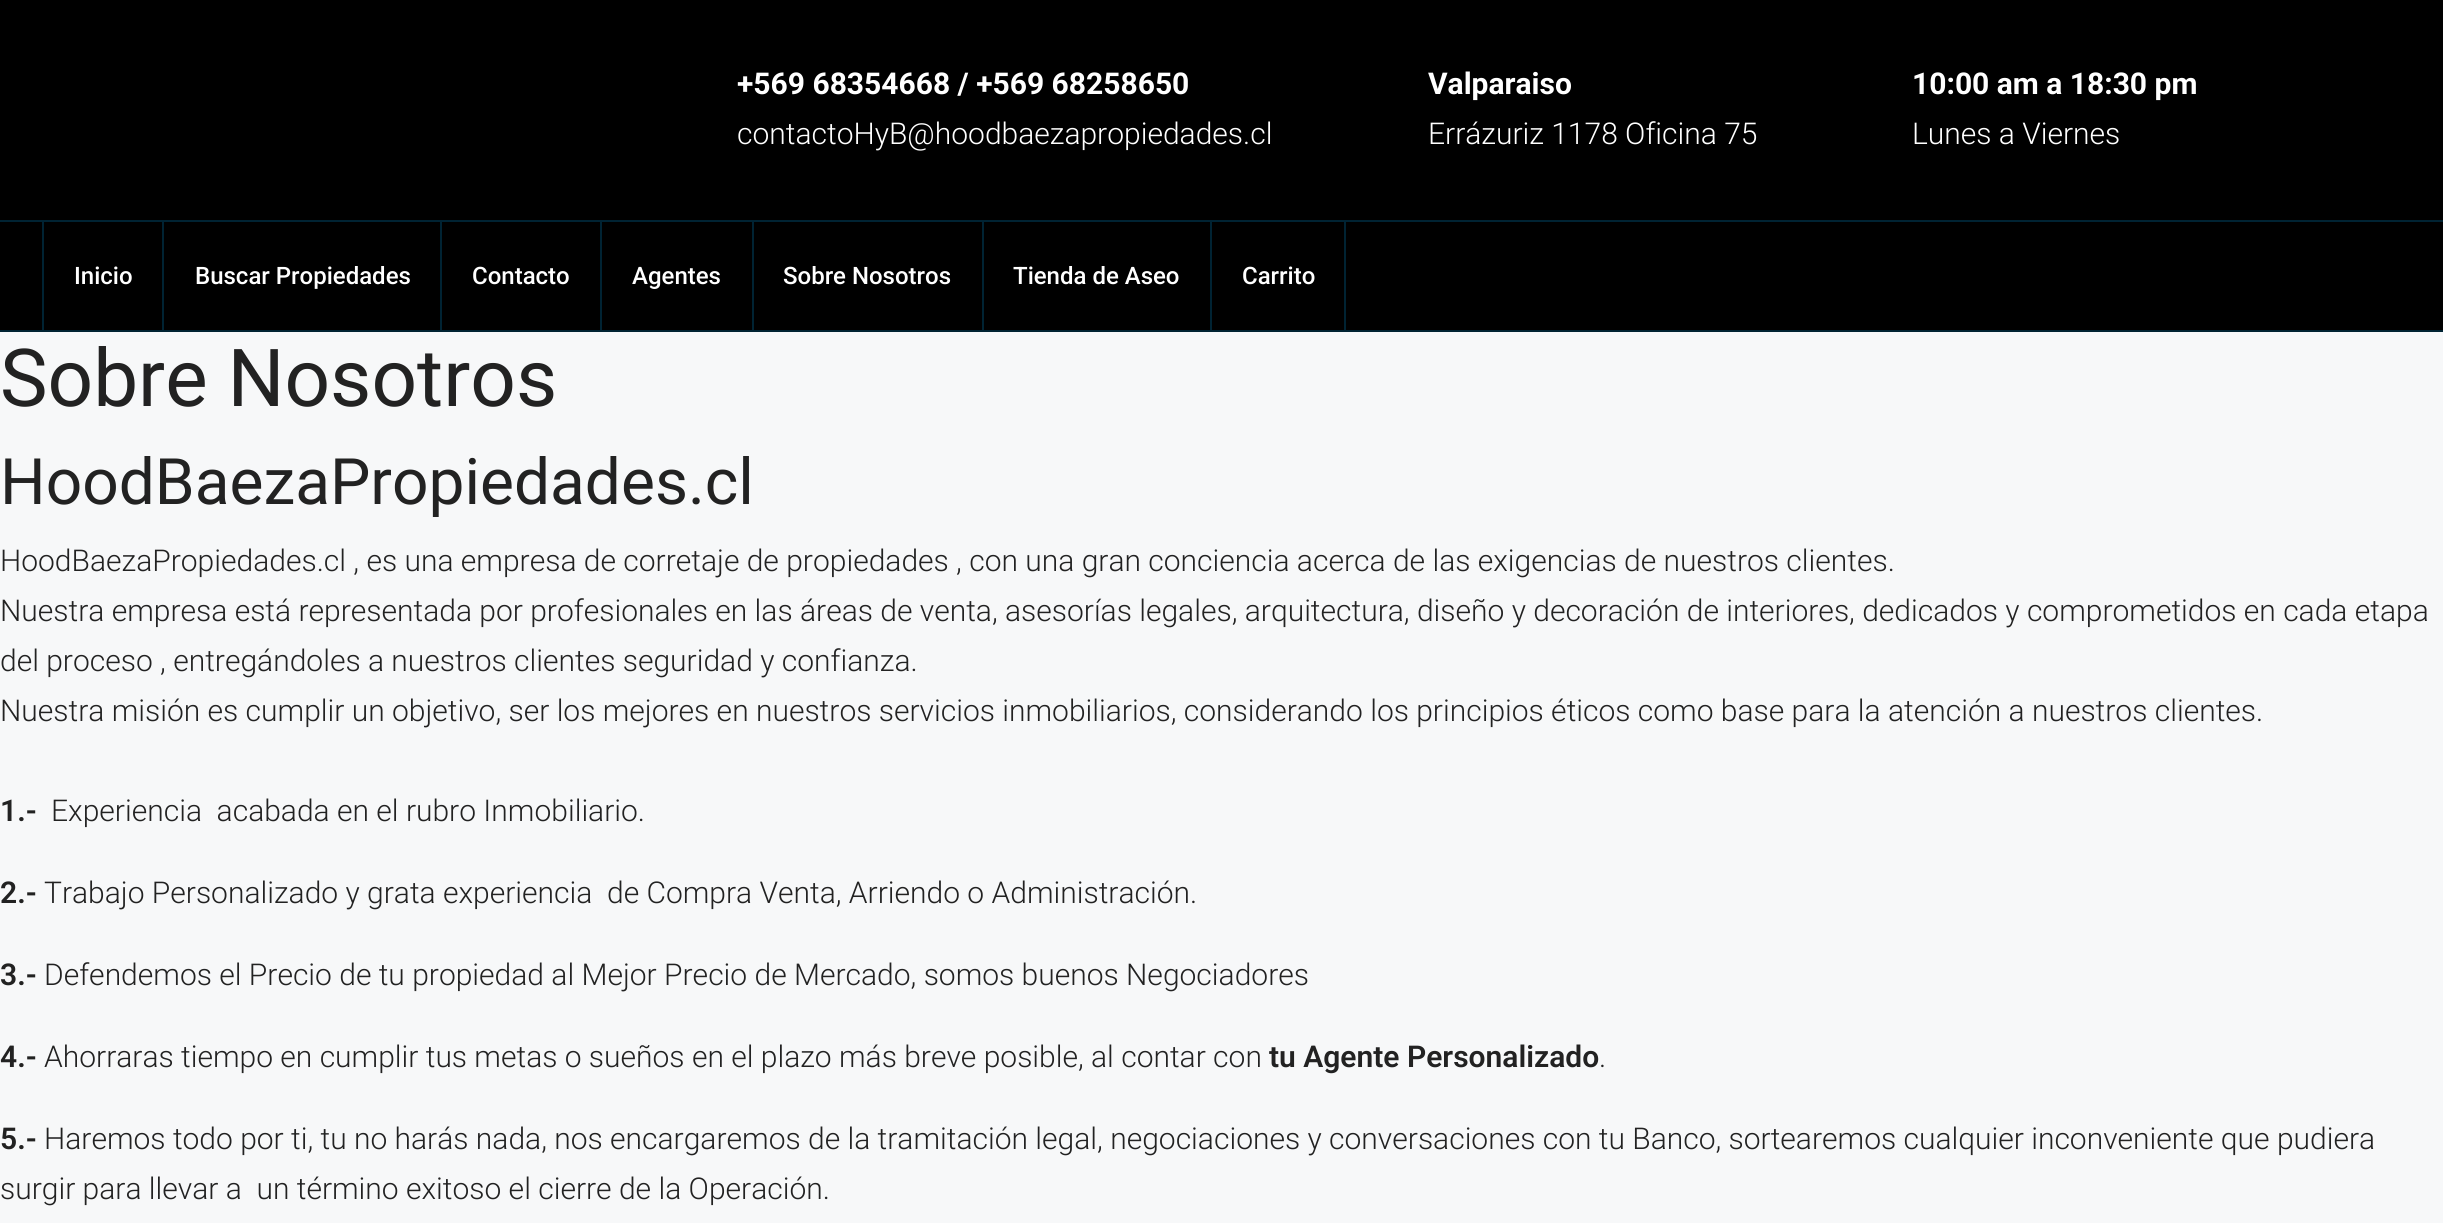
#include <cairo.h>
#include <math.h>
#include <stddef.h>

static cairo_t *ctx;

static void use_color(int r, int g, int b) {
    cairo_set_source_rgb(ctx, r / 255.0, g / 255.0, b / 255.0);
}

int main(void) {
    cairo_surface_t *surface = cairo_image_surface_create(CAIRO_FORMAT_RGB24, 2443, 1223);
    ctx = cairo_create(surface);
    cairo_font_options_t *options = cairo_font_options_create();
    cairo_font_options_set_hint_metrics(options, CAIRO_HINT_METRICS_OFF);
    cairo_font_options_set_hint_style(options, CAIRO_HINT_STYLE_NONE);
    cairo_set_font_options(ctx, options);
    cairo_set_miter_limit(ctx, 4);
    use_color(247, 248, 249);
    cairo_paint(ctx);
    use_color(0, 0, 0);
    cairo_rectangle(ctx, 0, 0, 2443, 220);
    cairo_fill(ctx);
    cairo_select_font_face(ctx, "Roboto", CAIRO_FONT_SLANT_NORMAL, CAIRO_FONT_WEIGHT_BOLD);
    cairo_set_font_size(ctx, 30);
    use_color(255, 255, 255);
    cairo_move_to(ctx, 737, 94);
    cairo_show_text(ctx, "+569 68354668 / +569 68258650");
    cairo_select_font_face(ctx, "Roboto Light", CAIRO_FONT_SLANT_NORMAL, CAIRO_FONT_WEIGHT_NORMAL);
    cairo_move_to(ctx, 737, 144);
    cairo_show_text(ctx, "contactoHyB@hoodbaezapropiedades.cl");
    cairo_select_font_face(ctx, "Roboto", CAIRO_FONT_SLANT_NORMAL, CAIRO_FONT_WEIGHT_BOLD);
    cairo_move_to(ctx, 1428, 94);
    cairo_show_text(ctx, "Valparaiso");
    cairo_select_font_face(ctx, "Roboto Light", CAIRO_FONT_SLANT_NORMAL, CAIRO_FONT_WEIGHT_NORMAL);
    cairo_move_to(ctx, 1428, 144);
    cairo_show_text(ctx, "Errázuriz 1178 Oficina 75");
    cairo_select_font_face(ctx, "Roboto", CAIRO_FONT_SLANT_NORMAL, CAIRO_FONT_WEIGHT_BOLD);
    cairo_move_to(ctx, 1912, 94);
    cairo_show_text(ctx, "10:00 am a 18:30 pm");
    cairo_select_font_face(ctx, "Roboto Light", CAIRO_FONT_SLANT_NORMAL, CAIRO_FONT_WEIGHT_NORMAL);
    cairo_move_to(ctx, 1912, 144);
    cairo_show_text(ctx, "Lunes a Viernes");
    use_color(0, 0, 0);
    cairo_rectangle(ctx, 0, 222, 2443, 108);
    cairo_fill(ctx);
    use_color(0, 35, 51);
    cairo_rectangle(ctx, 0, 220, 2443, 2);
    cairo_fill(ctx);
    cairo_rectangle(ctx, 0, 330, 2443, 2);
    cairo_fill(ctx);
    cairo_rectangle(ctx, 162, 222, 2, 108);
    cairo_fill(ctx);
    cairo_rectangle(ctx, 42, 222, 2, 108);
    cairo_fill(ctx);
    cairo_select_font_face(ctx, "Roboto Medium", CAIRO_FONT_SLANT_NORMAL, CAIRO_FONT_WEIGHT_NORMAL);
    cairo_set_font_size(ctx, 24);
    use_color(255, 255, 255);
    cairo_move_to(ctx, 74, 284);
    cairo_show_text(ctx, "Inicio");
    use_color(0, 35, 51);
    cairo_rectangle(ctx, 440, 222, 2, 108);
    cairo_fill(ctx);
    use_color(255, 255, 255);
    cairo_move_to(ctx, 195, 284);
    cairo_show_text(ctx, "Buscar Propiedades");
    use_color(0, 35, 51);
    cairo_rectangle(ctx, 600, 222, 2, 108);
    cairo_fill(ctx);
    use_color(255, 255, 255);
    cairo_move_to(ctx, 472, 284);
    cairo_show_text(ctx, "Contacto");
    use_color(0, 35, 51);
    cairo_rectangle(ctx, 752, 222, 2, 108);
    cairo_fill(ctx);
    use_color(255, 255, 255);
    cairo_move_to(ctx, 632, 284);
    cairo_show_text(ctx, "Agentes");
    use_color(0, 35, 51);
    cairo_rectangle(ctx, 982, 222, 2, 108);
    cairo_fill(ctx);
    use_color(255, 255, 255);
    cairo_move_to(ctx, 783, 284);
    cairo_show_text(ctx, "Sobre Nosotros");
    use_color(0, 35, 51);
    cairo_rectangle(ctx, 1210, 222, 2, 108);
    cairo_fill(ctx);
    use_color(255, 255, 255);
    cairo_move_to(ctx, 1013, 284);
    cairo_show_text(ctx, "Tienda de Aseo");
    use_color(0, 35, 51);
    cairo_rectangle(ctx, 1344, 222, 2, 108);
    cairo_fill(ctx);
    use_color(255, 255, 255);
    cairo_move_to(ctx, 1242, 284);
    cairo_show_text(ctx, "Carrito");
    cairo_select_font_face(ctx, "Roboto", CAIRO_FONT_SLANT_NORMAL, CAIRO_FONT_WEIGHT_NORMAL);
    cairo_set_font_size(ctx, 80);
    use_color(34, 34, 34);
    cairo_move_to(ctx, 0, 406);
    cairo_show_text(ctx, "Sobre Nosotros");
    cairo_set_font_size(ctx, 64);
    cairo_move_to(ctx, 0, 504);
    cairo_show_text(ctx, "HoodBaezaPropiedades.cl");
    cairo_select_font_face(ctx, "Roboto Light", CAIRO_FONT_SLANT_NORMAL, CAIRO_FONT_WEIGHT_NORMAL);
    cairo_set_font_size(ctx, 30);
    cairo_move_to(ctx, 0, 571);
    cairo_show_text(ctx, "HoodBaezaPropiedades.cl , es una empresa de corretaje de propiedades , con una gran conciencia acerca de las exigencias de nuestros clientes.");
    cairo_move_to(ctx, 0, 621);
    cairo_show_text(ctx, "Nuestra empresa está representada por profesionales en las áreas de venta, asesorías legales, arquitectura, diseño y decoración de interiores, dedicados y comprometidos en cada etapa");
    cairo_move_to(ctx, 0, 671);
    cairo_show_text(ctx, "del proceso , entregándoles a nuestros clientes seguridad y confianza.");
    cairo_move_to(ctx, 0, 721);
    cairo_show_text(ctx, "Nuestra misión es cumplir un objetivo, ser los mejores en nuestros servicios inmobiliarios, considerando los principios éticos como base para la atención a nuestros clientes.");
    cairo_select_font_face(ctx, "Roboto SemiBold", CAIRO_FONT_SLANT_NORMAL, CAIRO_FONT_WEIGHT_NORMAL);
    cairo_move_to(ctx, 0, 821);
    cairo_show_text(ctx, "1.-");
    cairo_select_font_face(ctx, "Roboto Light", CAIRO_FONT_SLANT_NORMAL, CAIRO_FONT_WEIGHT_NORMAL);
    cairo_move_to(ctx, 51, 821);
    cairo_show_text(ctx, "Experiencia  acabada en el rubro Inmobiliario.");
    cairo_select_font_face(ctx, "Roboto SemiBold", CAIRO_FONT_SLANT_NORMAL, CAIRO_FONT_WEIGHT_NORMAL);
    cairo_move_to(ctx, 0, 903);
    cairo_show_text(ctx, "2.-");
    cairo_select_font_face(ctx, "Roboto Light", CAIRO_FONT_SLANT_NORMAL, CAIRO_FONT_WEIGHT_NORMAL);
    cairo_move_to(ctx, 44, 903);
    cairo_show_text(ctx, "Trabajo Personalizado y grata experiencia  de Compra Venta, Arriendo o Administración.");
    cairo_select_font_face(ctx, "Roboto SemiBold", CAIRO_FONT_SLANT_NORMAL, CAIRO_FONT_WEIGHT_NORMAL);
    cairo_move_to(ctx, 0, 985);
    cairo_show_text(ctx, "3.-");
    cairo_select_font_face(ctx, "Roboto Light", CAIRO_FONT_SLANT_NORMAL, CAIRO_FONT_WEIGHT_NORMAL);
    cairo_move_to(ctx, 44, 985);
    cairo_show_text(ctx, "Defendemos el Precio de tu propiedad al Mejor Precio de Mercado, somos buenos Negociadores");
    cairo_select_font_face(ctx, "Roboto SemiBold", CAIRO_FONT_SLANT_NORMAL, CAIRO_FONT_WEIGHT_NORMAL);
    cairo_move_to(ctx, 0, 1067);
    cairo_show_text(ctx, "4.-");
    cairo_select_font_face(ctx, "Roboto Light", CAIRO_FONT_SLANT_NORMAL, CAIRO_FONT_WEIGHT_NORMAL);
    cairo_move_to(ctx, 44, 1067);
    cairo_show_text(ctx, "Ahorraras tiempo en cumplir tus metas o sueños en el plazo más breve posible, al contar con");
    cairo_select_font_face(ctx, "Roboto SemiBold", CAIRO_FONT_SLANT_NORMAL, CAIRO_FONT_WEIGHT_NORMAL);
    cairo_move_to(ctx, 1269, 1067);
    cairo_show_text(ctx, "tu Agente Personalizado");
    cairo_select_font_face(ctx, "Roboto Light", CAIRO_FONT_SLANT_NORMAL, CAIRO_FONT_WEIGHT_NORMAL);
    cairo_move_to(ctx, 1599, 1067);
    cairo_show_text(ctx, ".");
    cairo_select_font_face(ctx, "Roboto SemiBold", CAIRO_FONT_SLANT_NORMAL, CAIRO_FONT_WEIGHT_NORMAL);
    cairo_move_to(ctx, 0, 1149);
    cairo_show_text(ctx, "5.-");
    cairo_select_font_face(ctx, "Roboto Light", CAIRO_FONT_SLANT_NORMAL, CAIRO_FONT_WEIGHT_NORMAL);
    cairo_move_to(ctx, 44, 1149);
    cairo_show_text(ctx, "Haremos todo por ti, tu no harás nada, nos encargaremos de la tramitación legal, negociaciones y conversaciones con tu Banco, sortearemos cualquier inconveniente que pudiera");
    cairo_move_to(ctx, 0, 1199);
    cairo_show_text(ctx, "surgir para llevar a  un término exitoso el cierre de la Operación.");
    cairo_surface_write_to_png(surface, "result.png");
    cairo_font_options_destroy(options);
    cairo_destroy(ctx);
    cairo_surface_destroy(surface);
    return 0;
}
